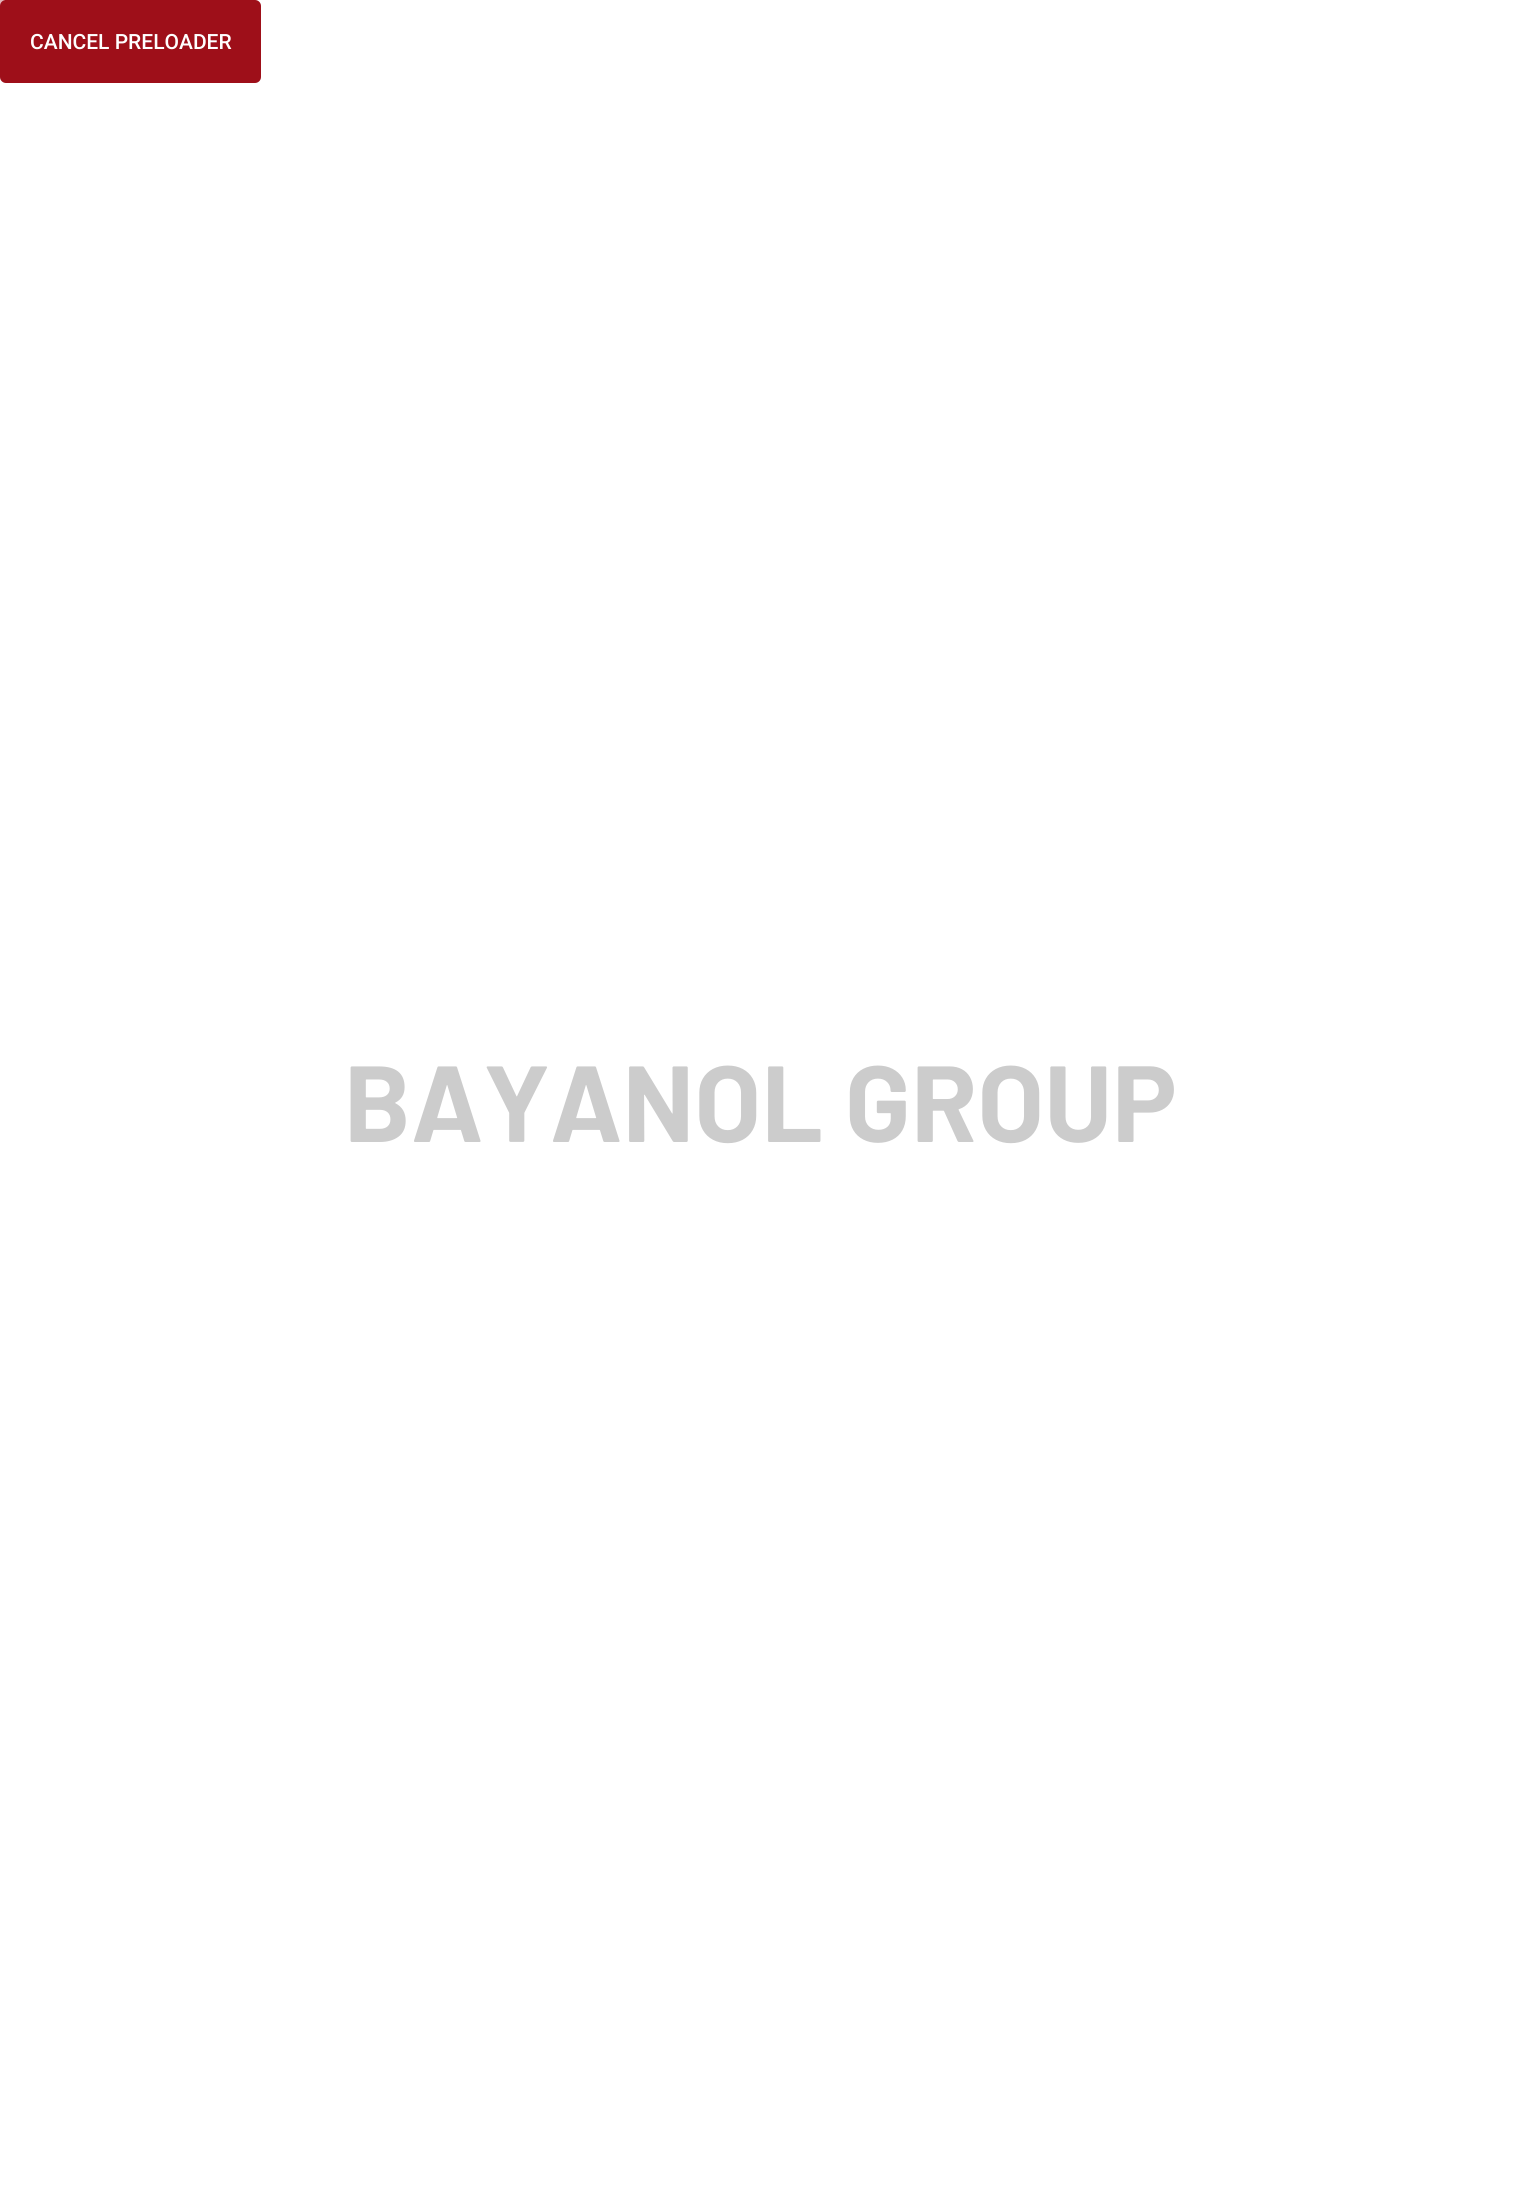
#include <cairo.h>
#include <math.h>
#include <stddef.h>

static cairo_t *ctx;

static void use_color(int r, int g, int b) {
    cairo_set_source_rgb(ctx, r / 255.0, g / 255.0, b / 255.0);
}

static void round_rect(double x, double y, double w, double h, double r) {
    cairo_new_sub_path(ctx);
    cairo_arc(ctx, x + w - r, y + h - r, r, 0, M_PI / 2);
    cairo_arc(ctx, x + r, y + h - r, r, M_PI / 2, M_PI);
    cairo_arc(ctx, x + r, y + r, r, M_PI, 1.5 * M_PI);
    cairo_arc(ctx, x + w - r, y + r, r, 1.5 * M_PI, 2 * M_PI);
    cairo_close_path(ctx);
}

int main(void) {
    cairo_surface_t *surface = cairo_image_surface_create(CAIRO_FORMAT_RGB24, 1521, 2195);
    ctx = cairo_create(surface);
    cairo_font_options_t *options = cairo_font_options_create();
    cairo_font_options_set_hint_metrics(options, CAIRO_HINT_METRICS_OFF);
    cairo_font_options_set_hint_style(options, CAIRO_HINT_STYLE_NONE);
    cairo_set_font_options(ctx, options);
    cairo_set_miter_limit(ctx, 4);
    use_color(255, 255, 255);
    cairo_paint(ctx);
    use_color(158, 15, 25);
    round_rect(0, 0, 261, 83, 6);
    cairo_fill(ctx);
    cairo_set_source_rgba(ctx, 0.62, 0.059, 0.098, 0.3);
    cairo_arc(ctx, 0.5, 0.5, 7.5, 0, 2 * M_PI);
    cairo_fill(ctx);
    round_rect(6, -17, 35, 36, 17.5);
    use_color(158, 15, 25);
    cairo_stroke(ctx);
    cairo_select_font_face(ctx, "Roboto Medium", CAIRO_FONT_SLANT_NORMAL, CAIRO_FONT_WEIGHT_NORMAL);
    cairo_set_font_size(ctx, 21);
    use_color(255, 255, 255);
    cairo_move_to(ctx, 30, 49);
    cairo_show_text(ctx, "CANCEL PRELOADER");
    cairo_select_font_face(ctx, "Barlow", CAIRO_FONT_SLANT_NORMAL, CAIRO_FONT_WEIGHT_BOLD);
    cairo_set_font_size(ctx, 108);
    use_color(204, 204, 204);
    cairo_move_to(ctx, 344, 1142);
    cairo_show_text(ctx, "BAYANOL GROUP");
    cairo_surface_write_to_png(surface, "result.png");
    cairo_font_options_destroy(options);
    cairo_destroy(ctx);
    cairo_surface_destroy(surface);
    return 0;
}
